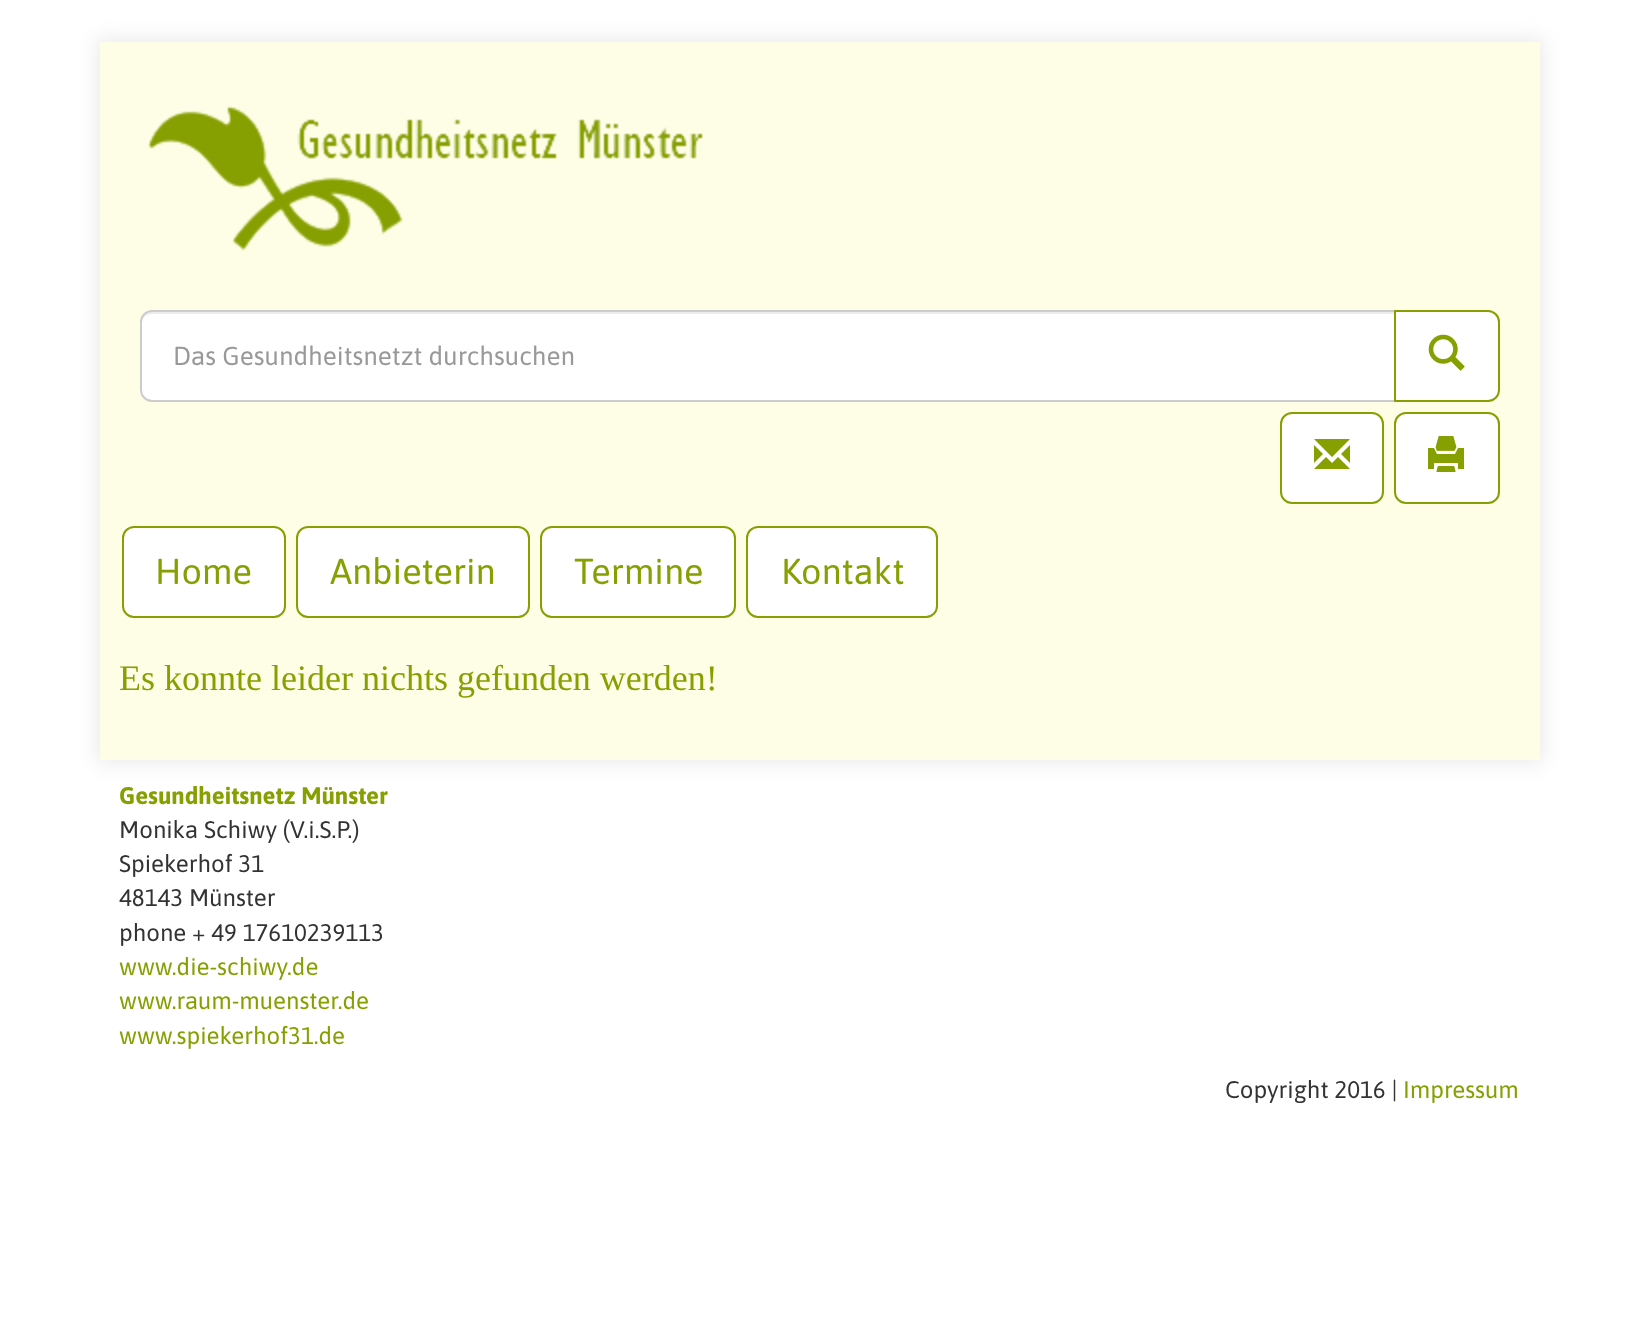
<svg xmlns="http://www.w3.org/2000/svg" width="1638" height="1336">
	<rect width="100%" height="100%" fill="#FFFFFF" />
	<rect x="96" y="38" width="1448" height="726" fill="#ECECEC" filter="blur(10px)" />
	<rect x="100" y="42" width="1440" height="718" fill="#FEFEE6" />
	<image x="147" y="105" width="556" height="146" href="assets/img1.png" />
	<path d="M152 310H1396V402H152C145.5 402 140 396.5 140 390V322C140 315.5 145.5 310 152 310Z" fill="#FFFFFF" />
	<path d="M152 314H1394V312H152C145 312 142 318 142 324C142 318 146 314 152 314Z" fill="#ECECEC" />
	<path d="M152 311H1395V401H152C146 401 141 396 141 390V322C141 316 146 311 152 311Z" fill="none" stroke="#CCCCCC" stroke-width="2" />
	<text x="173" y="365" font-family="Asap" font-size="26" fill="#999999">Das Gesundheitsnetzt durchsuchen</text>
	<path d="M1395 311H1488C1494 311 1499 316 1499 322V390C1499 396 1494 401 1488 401H1395Z" fill="#FFFFFF" stroke="#86A001" stroke-width="2" />
	<image x="1428" y="334" width="37" height="37" href="assets/img2.png" />
	<rect x="1281" y="413" width="102" height="90" rx="11" fill="#FFFFFF" stroke="#86A001" stroke-width="2" />
	<image x="1314" y="439" width="36" height="30" href="assets/img3.png" />
	<rect x="1395" y="413" width="104" height="90" rx="11" fill="#FFFFFF" stroke="#86A001" stroke-width="2" />
	<image x="1428" y="436" width="36" height="36" href="assets/img4.png" />
	<rect x="123" y="527" width="162" height="90" rx="11" fill="#FFFFFF" stroke="#86A001" stroke-width="2" />
	<text x="155" y="584" font-family="Asap" font-size="36" fill="#86A001">Home</text>
	<rect x="297" y="527" width="232" height="90" rx="11" fill="#FFFFFF" stroke="#86A001" stroke-width="2" />
	<text x="330" y="584" font-family="Asap" font-size="36" fill="#86A001">Anbieterin</text>
	<rect x="541" y="527" width="194" height="90" rx="11" fill="#FFFFFF" stroke="#86A001" stroke-width="2" />
	<text x="574" y="584" font-family="Asap" font-size="36" fill="#86A001">Termine</text>
	<rect x="747" y="527" width="190" height="90" rx="11" fill="#FFFFFF" stroke="#86A001" stroke-width="2" />
	<text x="781" y="584" font-family="Asap" font-size="36" fill="#86A001">Kontakt</text>
	<text x="119" y="690" font-family="Liberation Serif" font-size="36" fill="#86A001">Es konnte leider nichts gefunden werden!</text>
	<text x="119" y="804" font-family="Asap" font-size="24" font-weight="700" fill="#86A001">Gesundheitsnetz Münster</text>
	<g font-family="Asap" font-size="24" fill="#333333">
		<text x="119" y="838">Monika Schiwy (V.i.S.P.)</text>
		<text x="119" y="872">Spiekerhof 31</text>
		<text x="119" y="906">48143 Münster</text>
		<text x="119" y="941">phone + 49 17610239113</text>
	</g>
	<g font-family="Asap" font-size="24" fill="#86A001">
		<text x="119" y="975">www.die-schiwy.de</text>
		<text x="119" y="1009">www.raum-muenster.de</text>
		<text x="119" y="1044">www.spiekerhof31.de</text>
	</g>
	<text x="1225" y="1098" font-family="Asap" font-size="24" fill="#333333">Copyright 2016 |</text>
	<text x="1403" y="1098" font-family="Asap" font-size="24" fill="#86A001">Impressum</text>
</svg>
